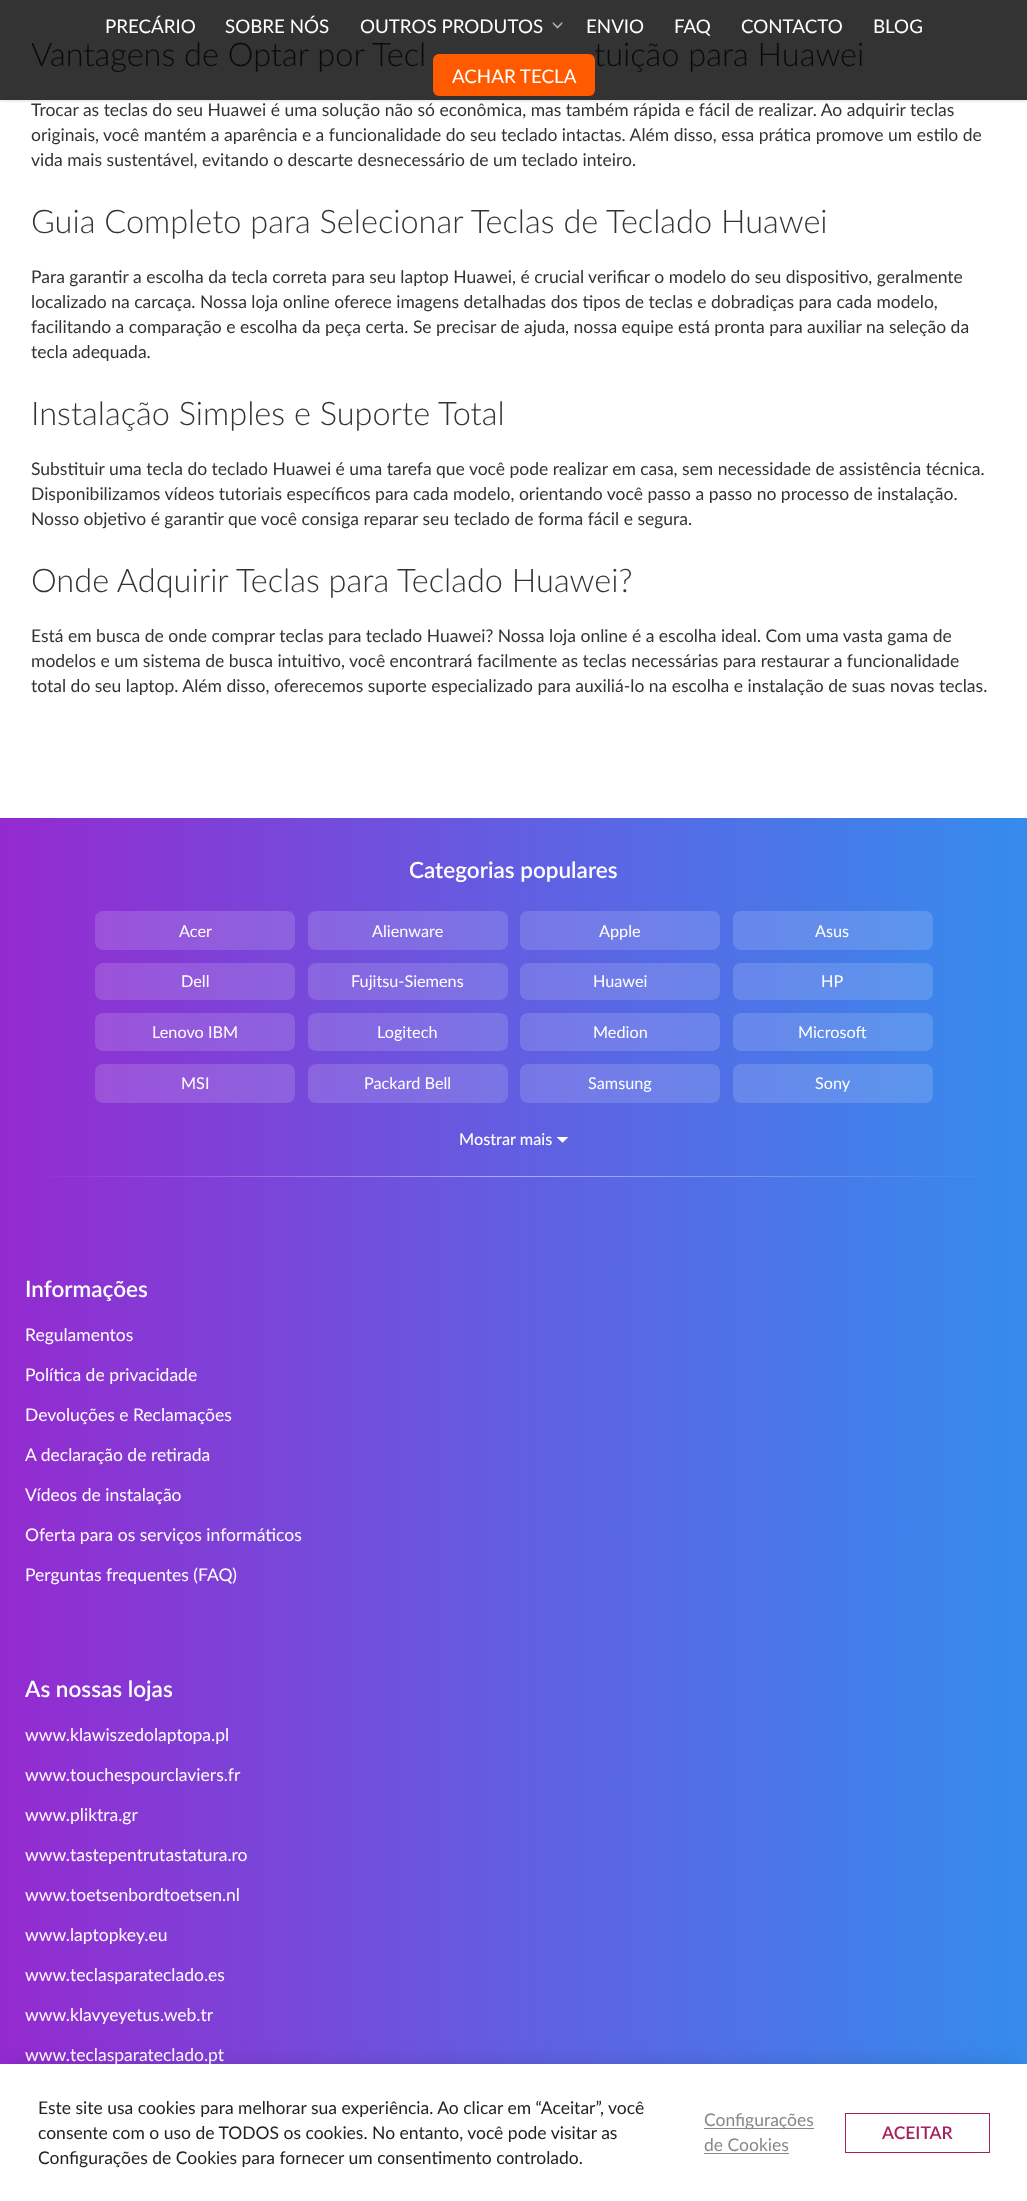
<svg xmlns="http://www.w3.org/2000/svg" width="1027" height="2201">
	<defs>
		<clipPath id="clip1"><rect x="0" y="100" width="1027" height="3" /></clipPath>
		<linearGradient id="g1" gradientUnits="userSpaceOnUse" x1="0" y1="998" x2="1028" y2="998"><stop offset="0" stop-color="#942AD0" /><stop offset="0.5" stop-color="#625EE2" /><stop offset="1" stop-color="#358CED" /></linearGradient>
		<linearGradient id="g2" gradientUnits="userSpaceOnUse" x1="25" y1="1177" x2="1003" y2="1177"><stop offset="0" stop-color="#FFFFFF" stop-opacity="0" /><stop offset="0.5" stop-color="#FFFFFF" stop-opacity="0.5" /><stop offset="1" stop-color="#FFFFFF" stop-opacity="0" /></linearGradient>
		<linearGradient id="g3" gradientUnits="userSpaceOnUse" x1="0" y1="1990" x2="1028" y2="1990"><stop offset="0" stop-color="#942AD0" /><stop offset="0.5" stop-color="#625EE2" /><stop offset="1" stop-color="#358CED" /></linearGradient>
	</defs>
	<rect width="100%" height="100%" fill="#FFFFFF" />
	<rect x="0" y="0" width="1027" height="100" fill="#333333" />
	<g clip-path="url(#clip1)">
		<rect x="0" y="0" width="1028" height="100" fill="#000000" fill-opacity="0.2" filter="blur(2px)" />
	</g>
	<g font-family="Lato" font-size="18.75" fill="#FFFFFF">
		<text x="105" y="33">PRECÁRIO</text>
		<text x="225" y="33">SOBRE NÓS</text>
		<text x="360" y="33">OUTROS PRODUTOS</text>
	</g>
	<image x="552" y="22" width="11" height="7" href="assets/img1.png" />
	<g font-family="Lato" font-size="18.75" fill="#FFFFFF">
		<text x="586" y="33">ENVIO</text>
		<text x="674" y="33">FAQ</text>
		<text x="741" y="33">CONTACTO</text>
		<text x="873" y="33">BLOG</text>
	</g>
	<text x="594" y="66" font-family="Lato" font-size="32.5" font-weight="300" fill="#0A0A0A">tuição para Huawei</text>
	<rect x="433" y="54" width="162" height="42" rx="6" fill="#FF5A00" />
	<text x="452" y="83" font-family="Lato" font-size="18.75" fill="#FFFFFF">ACHAR TECLA</text>
	<text x="31" y="66" font-family="Lato" font-size="32.5" font-weight="300" fill="#0A0A0A">Vantagens de Optar por Tecl</text>
	<g font-family="Lato" font-size="17.5" fill="#333333">
		<text x="31" y="116">Trocar as teclas do seu Huawei é uma solução não só econômica, mas também rápida e fácil de realizar. Ao adquirir teclas</text>
		<text x="31" y="141">originais, você mantém a aparência e a funcionalidade do seu teclado intactas. Além disso, essa prática promove um estilo de</text>
		<text x="31" y="166">vida mais sustentável, evitando o descarte desnecessário de um teclado inteiro.</text>
	</g>
	<text x="31" y="233" font-family="Lato" font-size="32.5" font-weight="300" fill="#333333">Guia Completo para Selecionar Teclas de Teclado Huawei</text>
	<g font-family="Lato" font-size="17.5" fill="#333333">
		<text x="31" y="283">Para garantir a escolha da tecla correta para seu laptop Huawei, é crucial verificar o modelo do seu dispositivo, geralmente</text>
		<text x="31" y="308">localizado na carcaça. Nossa loja online oferece imagens detalhadas dos tipos de teclas e dobradiças para cada modelo,</text>
		<text x="31" y="333">facilitando a comparação e escolha da peça certa. Se precisar de ajuda, nossa equipe está pronta para auxiliar na seleção da</text>
		<text x="31" y="358">tecla adequada.</text>
	</g>
	<text x="31" y="425" font-family="Lato" font-size="32.5" font-weight="300" fill="#333333">Instalação Simples e Suporte Total</text>
	<g font-family="Lato" font-size="17.5" fill="#333333">
		<text x="31" y="475">Substituir uma tecla do teclado Huawei é uma tarefa que você pode realizar em casa, sem necessidade de assistência técnica.</text>
		<text x="31" y="500">Disponibilizamos vídeos tutoriais específicos para cada modelo, orientando você passo a passo no processo de instalação.</text>
		<text x="31" y="525">Nosso objetivo é garantir que você consiga reparar seu teclado de forma fácil e segura.</text>
	</g>
	<text x="31" y="592" font-family="Lato" font-size="32.5" font-weight="300" fill="#333333">Onde Adquirir Teclas para Teclado Huawei?</text>
	<g font-family="Lato" font-size="17.5" fill="#333333">
		<text x="31" y="642">Está em busca de onde comprar teclas para teclado Huawei? Nossa loja online é a escolha ideal. Com uma vasta gama de</text>
		<text x="31" y="667">modelos e um sistema de busca intuitivo, você encontrará facilmente as teclas necessárias para restaurar a funcionalidade</text>
		<text x="31" y="692">total do seu laptop. Além disso, oferecemos suporte especializado para auxiliá-lo na escolha e instalação de suas novas teclas.</text>
	</g>
	<rect x="0" y="818" width="1027" height="360" fill="url(#g1)" />
	<text x="409" y="878" font-family="Lato" font-size="22.5" font-weight="600" fill="#FFFFFF">Categorias populares</text>
	<rect x="95" y="911" width="200" height="39" rx="8" fill="#FFFFFF" fill-opacity="0.15" />
	<text x="179" y="937" font-family="Lato" font-size="16.25" fill="#FFFFFF">Acer</text>
	<rect x="308" y="911" width="200" height="39" rx="8" fill="#FFFFFF" fill-opacity="0.15" />
	<text x="372" y="937" font-family="Lato" font-size="16.25" fill="#FFFFFF">Alienware</text>
	<rect x="520" y="911" width="200" height="39" rx="8" fill="#FFFFFF" fill-opacity="0.15" />
	<text x="599" y="937" font-family="Lato" font-size="16.25" fill="#FFFFFF">Apple</text>
	<rect x="733" y="911" width="200" height="39" rx="8" fill="#FFFFFF" fill-opacity="0.15" />
	<text x="815" y="937" font-family="Lato" font-size="16.25" fill="#FFFFFF">Asus</text>
	<rect x="95" y="963" width="200" height="37" rx="8" fill="#FFFFFF" fill-opacity="0.15" />
	<text x="181" y="987" font-family="Lato" font-size="16.25" fill="#FFFFFF">Dell</text>
	<rect x="308" y="963" width="200" height="37" rx="8" fill="#FFFFFF" fill-opacity="0.15" />
	<text x="351" y="987" font-family="Lato" font-size="16.25" fill="#FFFFFF">Fujitsu-Siemens</text>
	<rect x="520" y="963" width="200" height="37" rx="8" fill="#FFFFFF" fill-opacity="0.15" />
	<text x="593" y="987" font-family="Lato" font-size="16.25" fill="#FFFFFF">Huawei</text>
	<rect x="733" y="963" width="200" height="37" rx="8" fill="#FFFFFF" fill-opacity="0.15" />
	<text x="821" y="987" font-family="Lato" font-size="16.25" fill="#FFFFFF">HP</text>
	<rect x="95" y="1013" width="200" height="38" rx="8" fill="#FFFFFF" fill-opacity="0.15" />
	<text x="152" y="1038" font-family="Lato" font-size="16.25" fill="#FFFFFF">Lenovo IBM</text>
	<rect x="308" y="1013" width="200" height="38" rx="8" fill="#FFFFFF" fill-opacity="0.15" />
	<text x="377" y="1038" font-family="Lato" font-size="16.25" fill="#FFFFFF">Logitech</text>
	<rect x="520" y="1013" width="200" height="38" rx="8" fill="#FFFFFF" fill-opacity="0.15" />
	<text x="593" y="1038" font-family="Lato" font-size="16.25" fill="#FFFFFF">Medion</text>
	<rect x="733" y="1013" width="200" height="38" rx="8" fill="#FFFFFF" fill-opacity="0.15" />
	<text x="798" y="1038" font-family="Lato" font-size="16.25" fill="#FFFFFF">Microsoft</text>
	<rect x="95" y="1064" width="200" height="39" rx="8" fill="#FFFFFF" fill-opacity="0.15" />
	<text x="181" y="1089" font-family="Lato" font-size="16.25" fill="#FFFFFF">MSI</text>
	<rect x="308" y="1064" width="200" height="39" rx="8" fill="#FFFFFF" fill-opacity="0.15" />
	<text x="364" y="1089" font-family="Lato" font-size="16.25" fill="#FFFFFF">Packard Bell</text>
	<rect x="520" y="1064" width="200" height="39" rx="8" fill="#FFFFFF" fill-opacity="0.15" />
	<text x="588" y="1089" font-family="Lato" font-size="16.25" fill="#FFFFFF">Samsung</text>
	<rect x="733" y="1064" width="200" height="39" rx="8" fill="#FFFFFF" fill-opacity="0.15" />
	<text x="815" y="1089" font-family="Lato" font-size="16.25" fill="#FFFFFF">Sony</text>
	<text x="459" y="1145" font-family="Lato" font-size="16.25" font-weight="500" fill="#FFFFFF">Mostrar mais</text>
	<text x="556" y="1145" font-family="FreeSans" font-size="16.25" fill="#FFFFFF">⏷</text>
	<rect x="46" y="1176" width="936" height="1" fill="url(#g2)" />
	<rect x="0" y="1178" width="1027" height="886" fill="url(#g3)" />
	<text x="25" y="1297" font-family="Lato" font-size="22.5" font-weight="600" fill="#FFFFFF">Informações</text>
	<g font-family="Lato" font-size="17.5" fill="#FFFFFF">
		<text x="25" y="1341">Regulamentos</text>
		<text x="25" y="1381">Política de privacidade</text>
		<text x="25" y="1421">Devoluções e Reclamações</text>
		<text x="25" y="1461">A declaração de retirada</text>
		<text x="25" y="1501">Vídeos de instalação</text>
		<text x="25" y="1541">Oferta para os serviços informáticos</text>
		<text x="25" y="1581">Perguntas frequentes (FAQ)</text>
	</g>
	<text x="25" y="1697" font-family="Lato" font-size="22.5" font-weight="600" fill="#FFFFFF">As nossas lojas</text>
	<g font-family="Lato" font-size="17.5" fill="#FFFFFF">
		<text x="25" y="1741">www.klawiszedolaptopa.pl</text>
		<text x="25" y="1781">www.touchespourclaviers.fr</text>
		<text x="25" y="1821">www.pliktra.gr</text>
		<text x="25" y="1861">www.tastepentrutastatura.ro</text>
		<text x="25" y="1901">www.toetsenbordtoetsen.nl</text>
		<text x="25" y="1941">www.laptopkey.eu</text>
		<text x="25" y="1981">www.teclasparateclado.es</text>
		<text x="25" y="2021">www.klavyeyetus.web.tr</text>
		<text x="25" y="2061">www.teclasparateclado.pt</text>
	</g>
	<rect x="6" y="2070" width="1015" height="125" fill="#000000" fill-opacity="0.2" filter="blur(12.5px)" />
	<rect x="0" y="2064" width="1027" height="137" fill="#FFFFFF" />
	<g font-family="Lato" font-size="17.5" fill="#222222">
		<text x="38" y="2114">Este site usa cookies para melhorar sua experiência. Ao clicar em “Aceitar”, você</text>
		<text x="38" y="2139">consente com o uso de TODOS os cookies. No entanto, você pode visitar as</text>
		<text x="38" y="2164">Configurações de Cookies para fornecer um consentimento controlado.</text>
	</g>
	<rect x="704" y="2128" width="110" height="1" fill="#888888" />
	<g font-family="Lato" font-size="17.5" fill="#888888">
		<text x="704" y="2126">Configurações</text>
		<text x="704" y="2151">de Cookies</text>
	</g>
	<rect x="704" y="2153" width="85" height="1" fill="#888888" />
	<rect x="845.5" y="2113.5" width="144" height="39" fill="none" stroke="#A5205F" />
	<text x="882" y="2139" font-family="Lato" font-size="17.5" font-weight="600" fill="#A5205F">ACEITAR</text>
</svg>
